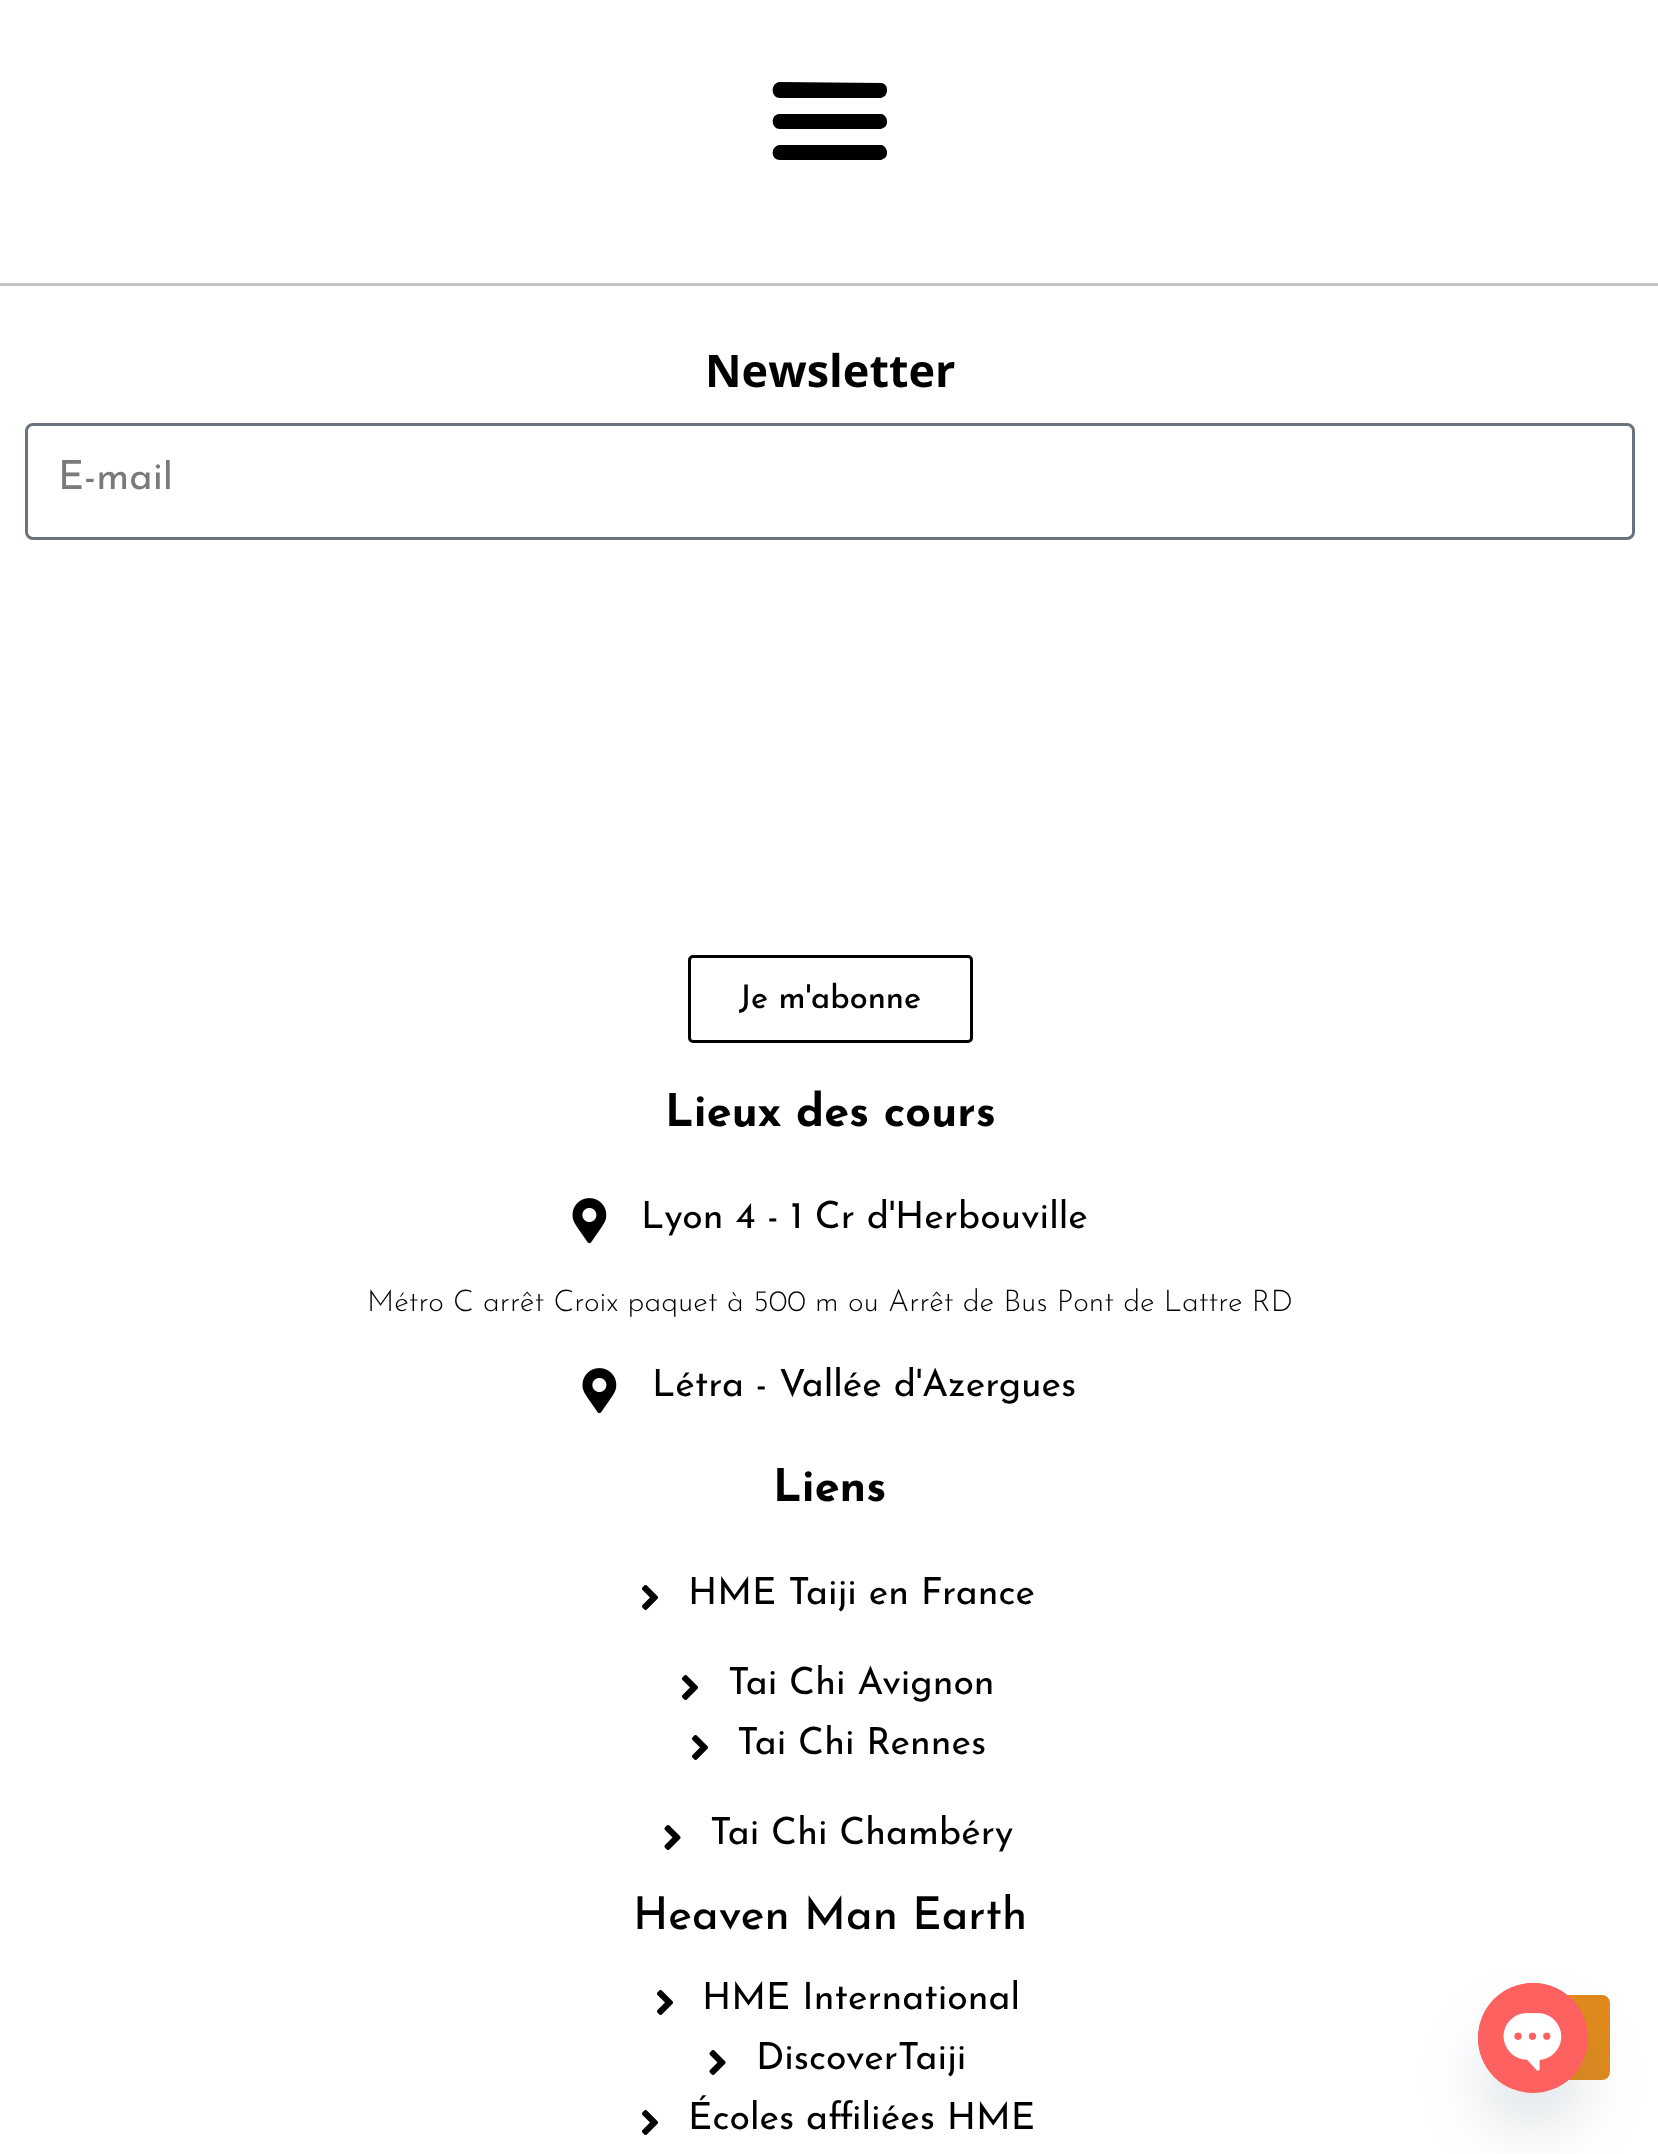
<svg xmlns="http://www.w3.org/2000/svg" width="1658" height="2154">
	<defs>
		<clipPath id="clip1"><rect x="58" y="460" width="1545" height="40" /></clipPath>
	</defs>
	<rect width="100%" height="100%" fill="#FFFFFF" />
	<rect x="0" y="283" width="1658" height="3" fill="#C3C3C3" />
	<path d="M780 98H881L885 96C889 91 887 84 882 83L779 82C770 84 771 98 780 98ZM780 129H881L885 127C889 123 887 116 882 114H779C770 115 771 129 780 129ZM780 160H881L885 158C889 154 887 147 882 145H779C770 147 771 160 780 160Z" fill="#000000" />
	<text x="705" y="387" font-family="Open Sans" font-size="45" font-weight="700" fill="#000000">Newsletter</text>
	<rect x="26.5" y="424.5" width="1607" height="114" rx="6.5" fill="none" stroke="#69727D" stroke-width="3" />
	<g clip-path="url(#clip1)">
		<text x="58" y="489" font-family="Josefin Sans" font-size="40" font-weight="100" fill="#797A7C">E-mail</text>
	</g>
	<rect x="689.5" y="956.5" width="282" height="85" rx="3.5" fill="none" stroke="#000000" stroke-width="3" />
	<text x="739" y="1008" font-family="Josefin Sans" font-size="32.5" font-weight="500" fill="#000000">Je m'abonne</text>
	<text x="665" y="1126" font-family="Josefin Sans" font-size="45" font-weight="700" fill="#000000">Lieux des cours</text>
	<image x="572" y="1198" width="35" height="46" href="assets/img1.png" />
	<text x="641" y="1228" font-family="Josefin Sans" font-size="37.5" font-weight="100" fill="#000000">Lyon 4 - 1 Cr d'Herbouville</text>
	<text x="367" y="1311" font-family="Josefin Sans" font-size="30" font-weight="300" fill="#000000">Métro C arrêt Croix paquet à 500 m ou Arrêt de Bus Pont de Lattre RD</text>
	<image x="582" y="1368" width="35" height="46" href="assets/img1.png" />
	<text x="652" y="1396" font-family="Josefin Sans" font-size="37.5" font-weight="100" fill="#000000">Létra - Vallée d'Azergues</text>
	<text x="773" y="1501" font-family="Josefin Sans" font-size="45" font-weight="700" fill="#000000">Liens</text>
	<image x="642" y="1585" width="16" height="25" href="assets/img2.png" />
	<text x="688" y="1604" font-family="Josefin Sans" font-size="37.5" font-weight="100" fill="#000000">HME Taiji en France</text>
	<image x="682" y="1675" width="16" height="25" href="assets/img2.png" />
	<text x="728" y="1694" font-family="Josefin Sans" font-size="37.5" font-weight="100" fill="#000000">Tai Chi Avignon</text>
	<image x="692" y="1735" width="16" height="25" href="assets/img2.png" />
	<text x="737" y="1754" font-family="Josefin Sans" font-size="37.5" font-weight="100" fill="#000000">Tai Chi Rennes</text>
	<image x="664" y="1825" width="17" height="25" href="assets/img3.png" />
	<text x="710" y="1844" font-family="Josefin Sans" font-size="37.5" font-weight="100" fill="#000000">Tai Chi Chambéry</text>
	<text x="633" y="1929" font-family="Josefin Sans" font-size="45" font-weight="500" fill="#000000">Heaven Man Earth</text>
	<image x="657" y="1990" width="16" height="25" href="assets/img2.png" />
	<text x="702" y="2009" font-family="Josefin Sans" font-size="37.5" font-weight="100" fill="#000000">HME International</text>
	<image x="709" y="2050" width="17" height="25" href="assets/img3.png" />
	<text x="756" y="2069" font-family="Josefin Sans" font-size="37.5" font-weight="100" fill="#000000">DiscoverTaiji</text>
	<image x="642" y="2110" width="16" height="25" href="assets/img2.png" />
	<text x="688" y="2129" font-family="Josefin Sans" font-size="37.5" font-weight="100" fill="#000000">Écoles affiliées HME</text>
	<rect x="1516.5" y="1996.5" width="92" height="82" rx="6.5" fill="#E08A1C" stroke="#E08A1C" stroke-width="3" />
	<rect x="1478" y="2023" width="110" height="110" rx="55" fill="#49687E" fill-opacity="0.16" filter="blur(30px)" />
	<circle cx="1533" cy="2038" r="55" fill="#FF6060" />
	<image x="1478" y="1983" width="89" height="106" href="assets/img4.png" />
</svg>
